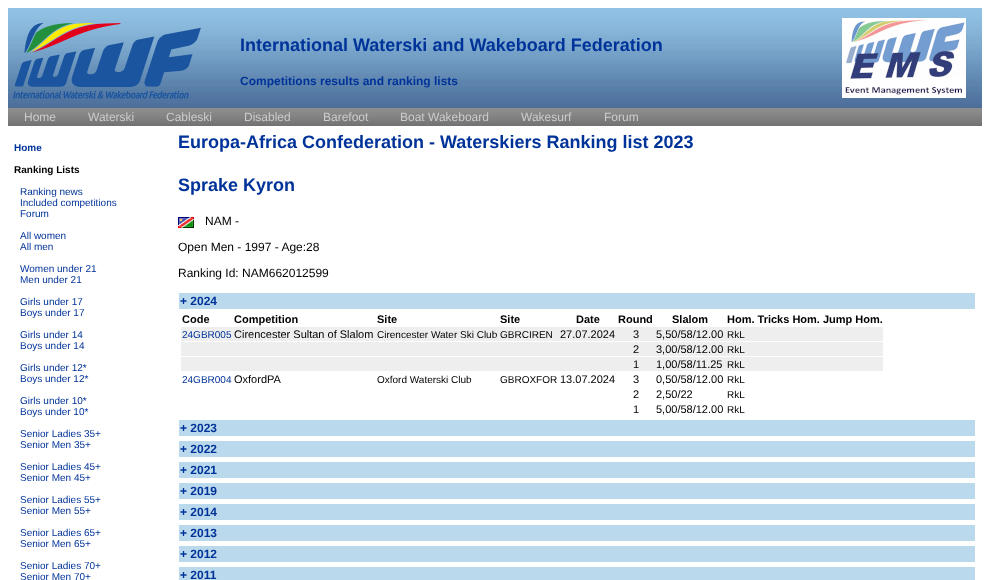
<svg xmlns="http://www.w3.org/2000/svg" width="990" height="580">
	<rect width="100%" height="100%" fill="#FFFFFF" />
	<image x="8" y="8" width="974" height="100" href="assets/img1.png" />
	<image x="13" y="23" width="188" height="76" href="assets/img2.png" />
	<text x="240" y="51" font-family="Liberation Sans" font-size="18" font-weight="700" fill="#003399">International Waterski and Wakeboard Federation</text>
	<text x="240" y="85" font-family="Liberation Sans" font-size="12" font-weight="700" fill="#003399">Competitions results and ranking lists</text>
	<image x="842" y="18" width="124" height="80" href="assets/img3.png" />
	<image x="8" y="108" width="974" height="18" href="assets/img4.png" />
	<g font-family="Liberation Sans" font-size="12" fill="#CCCCCC">
		<text x="24" y="121">Home</text>
		<text x="88" y="121">Waterski</text>
		<text x="166" y="121">Cableski</text>
		<text x="244" y="121">Disabled</text>
		<text x="323" y="121">Barefoot</text>
		<text x="400" y="121">Boat Wakeboard</text>
		<text x="521" y="121">Wakesurf</text>
		<text x="604" y="121">Forum</text>
	</g>
	<text x="14" y="151" font-family="Liberation Sans" font-size="10" font-weight="700" fill="#003399">Home</text>
	<text x="14" y="173" font-family="Liberation Sans" font-size="10" font-weight="700" fill="#000000">Ranking Lists</text>
	<g font-family="Liberation Sans" font-size="10" fill="#003399">
		<text x="20" y="195">Ranking news</text>
		<text x="20" y="206">Included competitions</text>
		<text x="20" y="217">Forum</text>
		<text x="20" y="239">All women</text>
		<text x="20" y="250">All men</text>
		<text x="20" y="272">Women under 21</text>
		<text x="20" y="283">Men under 21</text>
		<text x="20" y="305">Girls under 17</text>
		<text x="20" y="316">Boys under 17</text>
		<text x="20" y="338">Girls under 14</text>
		<text x="20" y="349">Boys under 14</text>
		<text x="20" y="371">Girls under 12*</text>
		<text x="20" y="382">Boys under 12*</text>
		<text x="20" y="404">Girls under 10*</text>
		<text x="20" y="415">Boys under 10*</text>
		<text x="20" y="437">Senior Ladies 35+</text>
		<text x="20" y="448">Senior Men 35+</text>
		<text x="20" y="470">Senior Ladies 45+</text>
		<text x="20" y="481">Senior Men 45+</text>
		<text x="20" y="503">Senior Ladies 55+</text>
		<text x="20" y="514">Senior Men 55+</text>
		<text x="20" y="536">Senior Ladies 65+</text>
		<text x="20" y="547">Senior Men 65+</text>
		<text x="20" y="569">Senior Ladies 70+</text>
		<text x="20" y="580">Senior Men 70+</text>
	</g>
	<g font-family="Liberation Sans" font-size="18" font-weight="700" fill="#003399">
		<text x="178" y="148">Europa-Africa Confederation - Waterskiers Ranking list 2023</text>
		<text x="178" y="191">Sprake Kyron</text>
	</g>
	<image x="178" y="217" width="16" height="11" href="assets/img5.png" />
	<g font-family="Liberation Sans" font-size="12" fill="#000000">
		<text x="205" y="225">NAM -</text>
		<text x="178" y="251">Open Men - 1997 - Age:28</text>
		<text x="178" y="277">Ranking Id: NAM662012599</text>
	</g>
	<rect x="179" y="293" width="796" height="16" fill="#BBD9EC" />
	<text x="180" y="305" font-family="Liberation Sans" font-size="12" font-weight="700" fill="#003399">+ 2024</text>
	<g font-family="Liberation Sans" font-size="11" font-weight="700" fill="#000000">
		<text x="182" y="323">Code</text>
		<text x="234" y="323">Competition</text>
		<text x="377" y="323">Site</text>
		<text x="500" y="323">Site</text>
		<text x="576" y="323">Date</text>
		<text x="618" y="323">Round</text>
		<text x="672" y="323">Slalom</text>
		<text x="727" y="323">Hom. Tricks Hom. Jump Hom.</text>
	</g>
	<rect x="181" y="327" width="702" height="14" fill="#EEEEEE" />
	<text x="182" y="338" font-family="Liberation Sans" font-size="10" fill="#003399">24GBR005</text>
	<text x="234" y="338" font-family="Liberation Sans" font-size="11" fill="#000000">Cirencester Sultan of Slalom</text>
	<text x="377" y="338" font-family="Liberation Sans" font-size="10" fill="#000000">Cirencester Water Ski Club GBRCIREN</text>
	<g font-family="Liberation Sans" font-size="11" fill="#000000">
		<text x="560" y="338">27.07.2024</text>
		<text x="633" y="338">3</text>
		<text x="656" y="338">5,50/58/12.00</text>
	</g>
	<text x="727" y="338" font-family="Liberation Sans" font-size="10" fill="#000000">RkL</text>
	<rect x="181" y="342" width="702" height="14" fill="#EEEEEE" />
	<g font-family="Liberation Sans" font-size="11" fill="#000000">
		<text x="633" y="353">2</text>
		<text x="656" y="353">3,00/58/12.00</text>
	</g>
	<text x="727" y="353" font-family="Liberation Sans" font-size="10" fill="#000000">RkL</text>
	<rect x="181" y="357" width="702" height="14" fill="#EEEEEE" />
	<g font-family="Liberation Sans" font-size="11" fill="#000000">
		<text x="633" y="368">1</text>
		<text x="656" y="368">1,00/58/11.25</text>
	</g>
	<text x="727" y="368" font-family="Liberation Sans" font-size="10" fill="#000000">RkL</text>
	<text x="182" y="383" font-family="Liberation Sans" font-size="10" fill="#003399">24GBR004</text>
	<text x="234" y="383" font-family="Liberation Sans" font-size="11" fill="#000000">OxfordPA</text>
	<g font-family="Liberation Sans" font-size="10" fill="#000000">
		<text x="377" y="383">Oxford Waterski Club</text>
		<text x="500" y="383">GBROXFOR</text>
	</g>
	<g font-family="Liberation Sans" font-size="11" fill="#000000">
		<text x="560" y="383">13.07.2024</text>
		<text x="633" y="383">3</text>
		<text x="656" y="383">0,50/58/12.00</text>
	</g>
	<text x="727" y="383" font-family="Liberation Sans" font-size="10" fill="#000000">RkL</text>
	<g font-family="Liberation Sans" font-size="11" fill="#000000">
		<text x="633" y="398">2</text>
		<text x="656" y="398">2,50/22</text>
	</g>
	<text x="727" y="398" font-family="Liberation Sans" font-size="10" fill="#000000">RkL</text>
	<g font-family="Liberation Sans" font-size="11" fill="#000000">
		<text x="633" y="413">1</text>
		<text x="656" y="413">5,00/58/12.00</text>
	</g>
	<text x="727" y="413" font-family="Liberation Sans" font-size="10" fill="#000000">RkL</text>
	<rect x="179" y="420" width="796" height="16" fill="#BBD9EC" />
	<text x="180" y="432" font-family="Liberation Sans" font-size="12" font-weight="700" fill="#003399">+ 2023</text>
	<rect x="179" y="441" width="796" height="16" fill="#BBD9EC" />
	<text x="180" y="453" font-family="Liberation Sans" font-size="12" font-weight="700" fill="#003399">+ 2022</text>
	<rect x="179" y="462" width="796" height="16" fill="#BBD9EC" />
	<text x="180" y="474" font-family="Liberation Sans" font-size="12" font-weight="700" fill="#003399">+ 2021</text>
	<rect x="179" y="483" width="796" height="16" fill="#BBD9EC" />
	<text x="180" y="495" font-family="Liberation Sans" font-size="12" font-weight="700" fill="#003399">+ 2019</text>
	<rect x="179" y="504" width="796" height="16" fill="#BBD9EC" />
	<text x="180" y="516" font-family="Liberation Sans" font-size="12" font-weight="700" fill="#003399">+ 2014</text>
	<rect x="179" y="525" width="796" height="16" fill="#BBD9EC" />
	<text x="180" y="537" font-family="Liberation Sans" font-size="12" font-weight="700" fill="#003399">+ 2013</text>
	<rect x="179" y="546" width="796" height="16" fill="#BBD9EC" />
	<text x="180" y="558" font-family="Liberation Sans" font-size="12" font-weight="700" fill="#003399">+ 2012</text>
	<rect x="179" y="567" width="796" height="13" fill="#BBD9EC" />
	<text x="180" y="579" font-family="Liberation Sans" font-size="12" font-weight="700" fill="#003399">+ 2011</text>
</svg>
